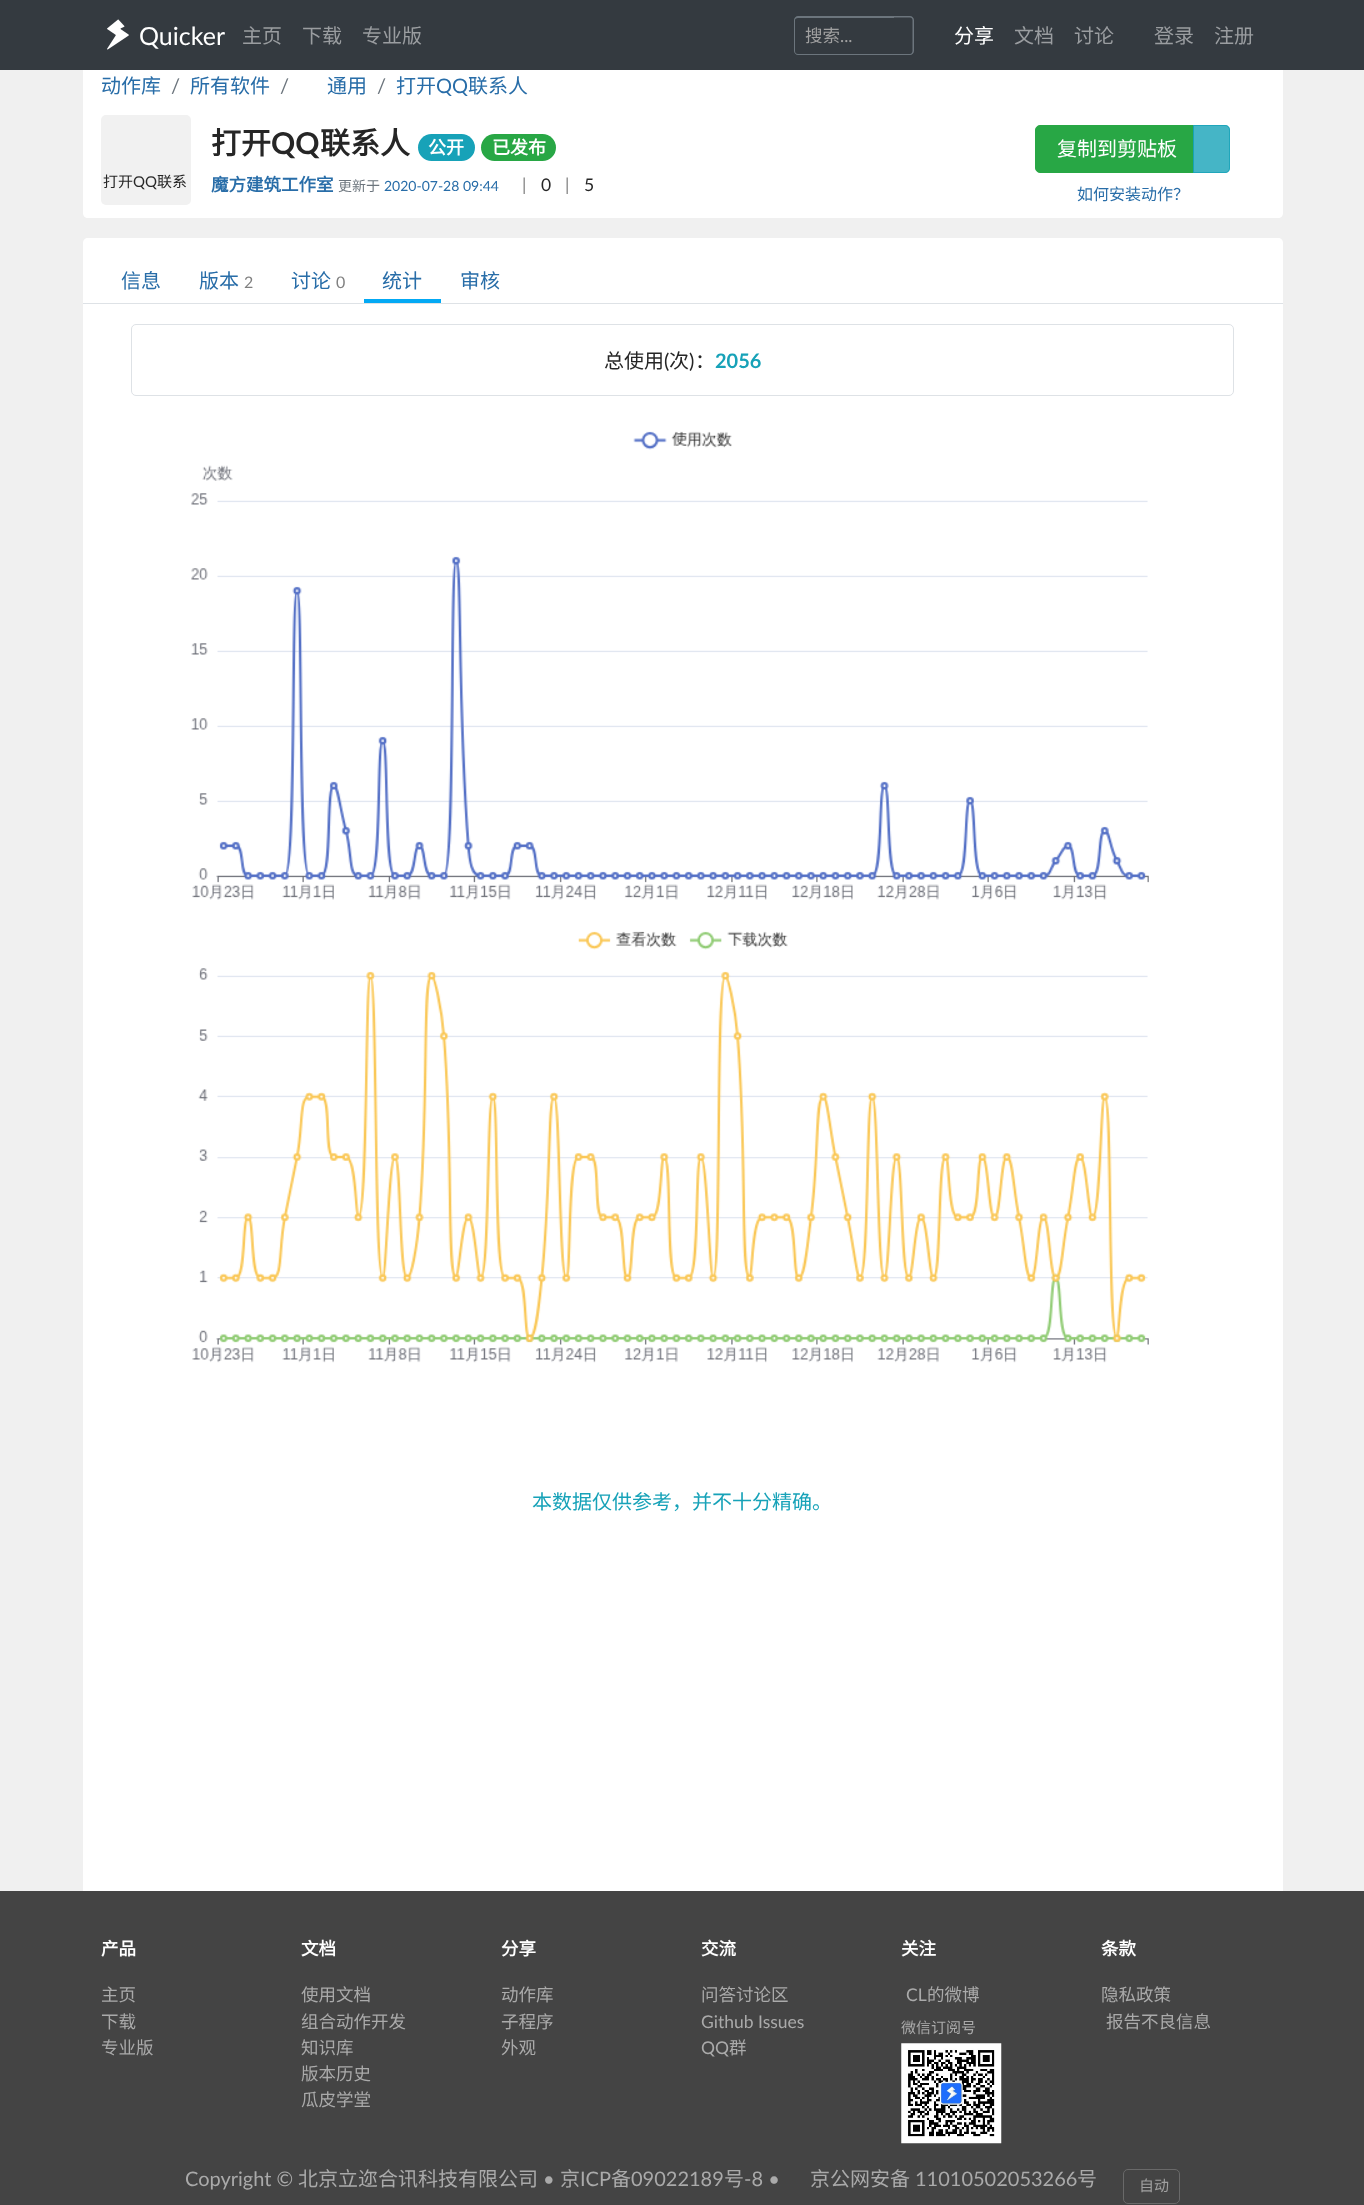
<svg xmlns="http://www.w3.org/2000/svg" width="1364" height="2205">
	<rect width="100%" height="100%" fill="#F0F0F0" />
	<path d="M83 55H1283V213C1283 216 1281 218 1278 218H88C85 218 83 216 83 213Z" fill="#FFFFFF" />
	<rect x="0" y="0" width="1364" height="70" fill="#343A40" />
	<image x="107" y="19" width="22" height="31" href="assets/img1.png" />
	<text x="139" y="45" font-family="Lato" font-size="25" fill="#FFFFFF">Quicker</text>
	<g font-family="Noto Sans CJK SC" font-size="20" fill="#9A9DA0">
		<text x="242" y="43">主页</text>
		<text x="302" y="43">下载</text>
		<text x="362" y="43">专业版</text>
	</g>
	<path d="M798 16H894V55H798C796 55 794 53 794 51V20C794 18 796 16 798 16ZM798 18H894V54H798C796 54 795 53 795 51V20C795 19 796 18 798 18Z" fill="#6C757D" fill-rule="evenodd" />
	<text x="805" y="42" font-family="Noto Sans CJK SC" font-size="17.5" fill="#A0A0A0">搜索</text>
	<text x="840" y="42" font-family="Lato" font-size="17.5" fill="#A0A0A0">...</text>
	<path d="M892.5 16H910C912 16 914 18 914 20V51C914 53 912 55 910 55H892.5ZM892.5 17.5H910C911.5 17.5 912.5 18.5 912.5 20V51C912.5 52.5 911.5 54 910 54H892.5Z" fill="#6C757D" fill-rule="evenodd" />
	<text x="954" y="43" font-family="Noto Sans CJK SC" font-size="20" fill="#FFFFFF">分享</text>
	<g font-family="Noto Sans CJK SC" font-size="20" fill="#9A9DA0">
		<text x="1014" y="43">文档</text>
		<text x="1074" y="43">讨论</text>
		<text x="1154" y="43">登录</text>
		<text x="1214" y="43">注册</text>
	</g>
	<text x="101" y="93" font-family="Noto Sans CJK SC" font-size="20" fill="#286DA8">动作库</text>
	<text x="171" y="93" font-family="Lato" font-size="20" fill="#6C757D">/</text>
	<text x="190" y="93" font-family="Noto Sans CJK SC" font-size="20" fill="#286DA8">所有软件</text>
	<text x="280" y="93" font-family="Lato" font-size="20" fill="#6C757D">/</text>
	<text x="327" y="93" font-family="Noto Sans CJK SC" font-size="20" fill="#286DA8">通用</text>
	<text x="377" y="93" font-family="Lato" font-size="20" fill="#6C757D">/</text>
	<text x="396" y="93" font-family="Noto Sans CJK SC" font-size="20" fill="#286DA8">打开</text>
	<text x="436" y="93" font-family="Lato" font-size="20" fill="#286DA8">QQ</text>
	<text x="468" y="93" font-family="Noto Sans CJK SC" font-size="20" fill="#286DA8">联系人</text>
	<rect x="101" y="115" width="90" height="90" rx="5" fill="#F1F1F1" />
	<text x="103" y="187" font-family="Noto Sans CJK SC" font-size="15" fill="#262626">打开</text>
	<text x="133" y="187" font-family="Lato" font-size="15" fill="#262626">QQ</text>
	<text x="157" y="187" font-family="Noto Sans CJK SC" font-size="15" fill="#262626">联系</text>
	<text x="211" y="154" font-family="Noto Sans CJK SC" font-size="30" font-weight="700" fill="#262626">打开</text>
	<text x="271" y="154" font-family="Lato" font-size="30" font-weight="700" fill="#262626">QQ</text>
	<text x="320" y="154" font-family="Noto Sans CJK SC" font-size="30" font-weight="700" fill="#262626">联系人</text>
	<rect x="418" y="134" width="57" height="27" rx="13.5" fill="#17A2B8" />
	<text x="428" y="154" font-family="Noto Sans CJK SC" font-size="18" font-weight="700" fill="#FFFFFF">公开</text>
	<rect x="481" y="134" width="75" height="27" rx="13.5" fill="#28A745" />
	<text x="492" y="154" font-family="Noto Sans CJK SC" font-size="18" font-weight="700" fill="#FFFFFF">已发布</text>
	<text x="211" y="191" font-family="Noto Sans CJK SC" font-size="17.5" font-weight="700" fill="#286DA8">魔方建筑工作室</text>
	<text x="338" y="191" font-family="Noto Sans CJK SC" font-size="14" fill="#6C757D">更新于</text>
	<text x="384" y="191" font-family="Lato" font-size="14" fill="#286DA8">2020-07-28 09:44</text>
	<text x="522" y="191" font-family="Lato" font-size="17.5" fill="#808080">|</text>
	<text x="541" y="191" font-family="Lato" font-size="17.5" fill="#262626">0</text>
	<text x="565" y="191" font-family="Lato" font-size="17.5" fill="#808080">|</text>
	<text x="584" y="191" font-family="Lato" font-size="17.5" fill="#262626">5</text>
	<path d="M1040 125.5H1193.5V172.5H1040C1037.5 172.5 1035.5 170.5 1035.5 168V130C1035.5 127.5 1037.5 125.5 1040 125.5Z" fill="#28A745" stroke="#28A745" />
	<text x="1057" y="156" font-family="Noto Sans CJK SC" font-size="20" fill="#FFFFFF">复制到剪贴板</text>
	<path d="M1193 125H1225C1228 125 1230 127 1230 130V168C1230 171 1228 173 1225 173H1193Z" fill="#17A2B8" fill-opacity="0.8" />
	<path d="M1193.5 125.5H1225C1227.5 125.5 1229.5 127.5 1229.5 130V168C1229.5 170.5 1227.5 172.5 1225 172.5H1193.5Z" fill="none" stroke="#17A2B8" stroke-opacity="0.8" />
	<text x="1077" y="200" font-family="Noto Sans CJK SC" font-size="16" fill="#286DA8">如何安装动作？</text>
	<path d="M88 238H1278C1281 238 1283 240 1283 243V1891H83V243C83 240 85 238 88 238Z" fill="#FFFFFF" />
	<rect x="83" y="303" width="1200" height="1" fill="#DEE2E6" />
	<g font-family="Noto Sans CJK SC" font-size="20" fill="#286DA8">
		<text x="121" y="288">信息</text>
		<text x="199" y="288">版本</text>
	</g>
	<text x="244" y="288" font-family="Lato" font-size="16" fill="#808080">2</text>
	<text x="291" y="288" font-family="Noto Sans CJK SC" font-size="20" fill="#286DA8">讨论</text>
	<text x="336" y="288" font-family="Lato" font-size="16" fill="#808080">0</text>
	<rect x="364" y="299" width="77" height="4" fill="#03A9F4" />
	<g font-family="Noto Sans CJK SC" font-size="20" fill="#286DA8">
		<text x="382" y="288">统计</text>
		<text x="460" y="288">审核</text>
	</g>
	<rect x="131.5" y="324.5" width="1102" height="71" rx="4.5" fill="none" stroke="#DEE2E6" />
	<text x="604" y="368" font-family="Noto Sans CJK SC" font-size="20" fill="#262626">总使用</text>
	<text x="664" y="368" font-family="Lato" font-size="20" fill="#262626">(</text>
	<text x="669" y="368" font-family="Noto Sans CJK SC" font-size="20" fill="#262626">次</text>
	<text x="689" y="368" font-family="Lato" font-size="20" fill="#262626">)</text>
	<text x="695" y="368" font-family="Noto Sans CJK SC" font-size="20" fill="#262626">：</text>
	<text x="715" y="368" font-family="Lato" font-size="20" font-weight="700" fill="#17A2B8">2056</text>
	<image x="191" y="431" width="958" height="932" href="assets/img2.png" />
	<text x="532" y="1509" font-family="Noto Sans CJK SC" font-size="20" fill="#17A2B8">本数据仅供参考，并不十分精确。</text>
	<rect x="0" y="1891" width="1364" height="314" fill="#444444" />
	<text x="101" y="1955" font-family="Noto Sans CJK SC" font-size="17.5" font-weight="700" fill="#FFFFFF">产品</text>
	<g font-family="Noto Sans CJK SC" font-size="17.5" fill="#AAAAAA">
		<text x="101" y="2001">主页</text>
		<text x="101" y="2028">下载</text>
		<text x="101" y="2054">专业版</text>
	</g>
	<text x="301" y="1955" font-family="Noto Sans CJK SC" font-size="17.5" font-weight="700" fill="#FFFFFF">文档</text>
	<g font-family="Noto Sans CJK SC" font-size="17.5" fill="#AAAAAA">
		<text x="301" y="2001">使用文档</text>
		<text x="301" y="2028">组合动作开发</text>
		<text x="301" y="2054">知识库</text>
		<text x="301" y="2080">版本历史</text>
		<text x="301" y="2106">瓜皮学堂</text>
	</g>
	<text x="501" y="1955" font-family="Noto Sans CJK SC" font-size="17.5" font-weight="700" fill="#FFFFFF">分享</text>
	<g font-family="Noto Sans CJK SC" font-size="17.5" fill="#AAAAAA">
		<text x="501" y="2001">动作库</text>
		<text x="501" y="2028">子程序</text>
		<text x="501" y="2054">外观</text>
	</g>
	<text x="701" y="1955" font-family="Noto Sans CJK SC" font-size="17.5" font-weight="700" fill="#FFFFFF">交流</text>
	<text x="701" y="2001" font-family="Noto Sans CJK SC" font-size="17.5" fill="#AAAAAA">问答讨论区</text>
	<g font-family="Lato" font-size="17.5" fill="#AAAAAA">
		<text x="701" y="2028">Github Issues</text>
		<text x="701" y="2054">QQ</text>
	</g>
	<text x="729" y="2054" font-family="Noto Sans CJK SC" font-size="17.5" fill="#AAAAAA">群</text>
	<text x="901" y="1955" font-family="Noto Sans CJK SC" font-size="17.5" font-weight="700" fill="#FFFFFF">关注</text>
	<text x="906" y="2001" font-family="Lato" font-size="17.5" fill="#AAAAAA">CL</text>
	<text x="927" y="2001" font-family="Noto Sans CJK SC" font-size="17.5" fill="#AAAAAA">的微博</text>
	<text x="901" y="2033" font-family="Noto Sans CJK SC" font-size="15" fill="#AAAAAA">微信订阅号</text>
	<image x="901" y="2043" width="101" height="101" href="assets/img3.png" />
	<text x="1101" y="1955" font-family="Noto Sans CJK SC" font-size="17.5" font-weight="700" fill="#FFFFFF">条款</text>
	<g font-family="Noto Sans CJK SC" font-size="17.5" fill="#AAAAAA">
		<text x="1101" y="2001">隐私政策</text>
		<text x="1106" y="2028">报告不良信息</text>
	</g>
	<text x="185" y="2186" font-family="Lato" font-size="20" fill="#AAAAAA">Copyright ©</text>
	<text x="298" y="2186" font-family="Noto Sans CJK SC" font-size="20" fill="#AAAAAA">北京立迩合讯科技有限公司</text>
	<text x="543" y="2186" font-family="Lato" font-size="20" fill="#AAAAAA">•</text>
	<text x="560" y="2186" font-family="Noto Sans CJK SC" font-size="20" fill="#AAAAAA">京</text>
	<text x="580" y="2186" font-family="Lato" font-size="20" fill="#AAAAAA">ICP</text>
	<text x="611" y="2186" font-family="Noto Sans CJK SC" font-size="20" fill="#AAAAAA">备</text>
	<text x="631" y="2186" font-family="Lato" font-size="20" fill="#AAAAAA">09022189</text>
	<text x="724" y="2186" font-family="Noto Sans CJK SC" font-size="20" fill="#AAAAAA">号</text>
	<text x="744" y="2186" font-family="Lato" font-size="20" fill="#AAAAAA">-8 •</text>
	<text x="810" y="2186" font-family="Noto Sans CJK SC" font-size="20" fill="#AAAAAA">京公网安备</text>
	<text x="915" y="2186" font-family="Lato" font-size="20" fill="#AAAAAA">11010502053266</text>
	<text x="1077" y="2186" font-family="Noto Sans CJK SC" font-size="20" fill="#AAAAAA">号</text>
	<rect x="1123.5" y="2169.5" width="56" height="34" rx="4.5" fill="none" stroke="#696969" />
	<text x="1139" y="2191" font-family="Noto Sans CJK SC" font-size="15" fill="#A0A0A0">自动</text>
</svg>
